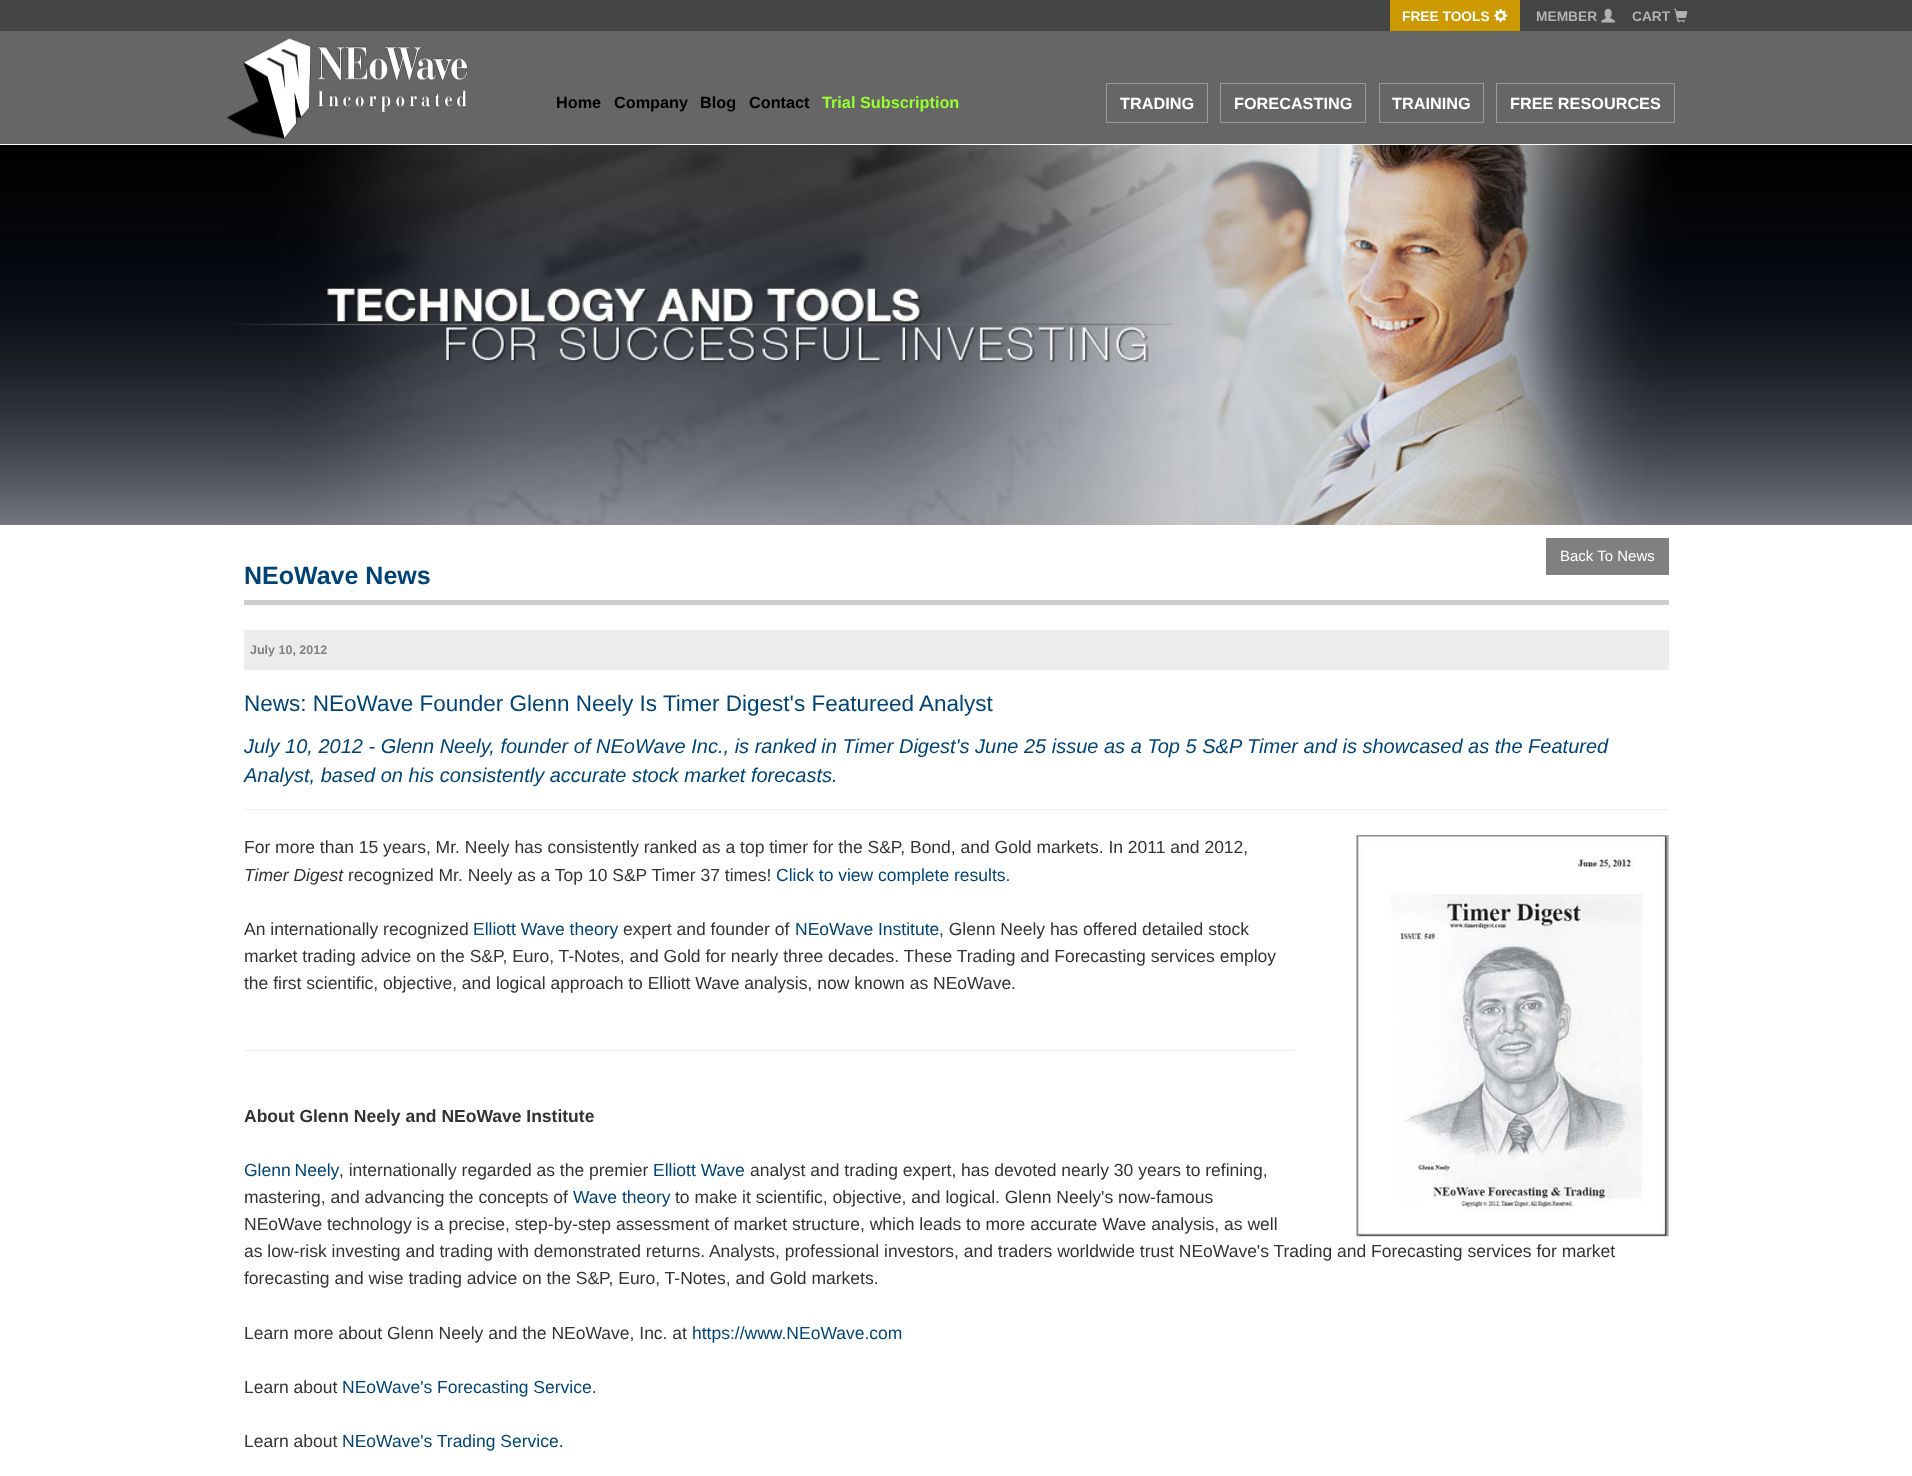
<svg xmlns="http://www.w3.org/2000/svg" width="1912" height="1476">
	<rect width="100%" height="100%" fill="#FFFFFF" />
	<rect x="0" y="31" width="1912" height="113" fill="#666666" />
	<rect x="0" y="0" width="1912" height="31" fill="#444444" />
	<rect x="1390" y="0" width="130" height="31" fill="#CC9900" />
	<text x="1402" y="21" font-family="Liberation Sans" font-size="13.75" font-weight="700" fill="#FFFFFF">FREE TOOLS</text>
	<image x="1494" y="9" width="14" height="14" href="assets/img1.png" />
	<text x="1536" y="21" font-family="Liberation Sans" font-size="13.75" font-weight="700" fill="#B1B2B2">MEMBER</text>
	<image x="1601" y="8" width="14" height="15" href="assets/img2.png" />
	<text x="1632" y="21" font-family="Liberation Sans" font-size="13.75" font-weight="700" fill="#B1B2B2">CART</text>
	<image x="1673" y="8" width="15" height="15" href="assets/img3.png" />
	<image x="227" y="38" width="241" height="101" href="assets/img4.png" />
	<g font-family="Liberation Sans" font-size="16.25" font-weight="700" fill="#000000">
		<text x="556" y="108">Home</text>
		<text x="614" y="108">Company</text>
		<text x="700" y="108">Blog</text>
		<text x="749" y="108">Contact</text>
	</g>
	<text x="822" y="108" font-family="Liberation Sans" font-size="16.25" font-weight="700" fill="#99FF33">Trial Subscription</text>
	<rect x="1106.5" y="83.5" width="101" height="39" fill="none" stroke="#999999" />
	<text x="1120" y="109" font-family="Liberation Sans" font-size="16.25" font-weight="700" fill="#FFFFFF">TRADING</text>
	<rect x="1220.5" y="83.5" width="145" height="39" fill="none" stroke="#999999" />
	<text x="1234" y="109" font-family="Liberation Sans" font-size="16.25" font-weight="700" fill="#FFFFFF">FORECASTING</text>
	<rect x="1379.5" y="83.5" width="104" height="39" fill="none" stroke="#999999" />
	<text x="1392" y="109" font-family="Liberation Sans" font-size="16.25" font-weight="700" fill="#FFFFFF">TRAINING</text>
	<rect x="1496.5" y="83.5" width="178" height="39" fill="none" stroke="#999999" />
	<text x="1510" y="109" font-family="Liberation Sans" font-size="16.25" font-weight="700" fill="#FFFFFF">FREE RESOURCES</text>
	<image x="0" y="145" width="1912" height="380" href="assets/img5.png" />
	<image x="225" y="145" width="1463" height="380" href="assets/img6.png" />
	<rect x="1546" y="538" width="123" height="37" fill="#808080" />
	<text x="1560" y="561" font-family="Liberation Sans" font-size="15" fill="#FFFFFF">Back To News</text>
	<rect x="244" y="600" width="1425" height="5" fill="#CCCCCC" />
	<text x="244" y="584" font-family="Liberation Sans" font-size="25" font-weight="700" fill="#004477">NEoWave News</text>
	<rect x="244" y="630" width="1425" height="40" fill="#ECECEC" />
	<text x="250" y="654" font-family="Liberation Sans" font-size="12.5" font-weight="700" fill="#808080">July 10, 2012</text>
	<text x="244" y="711" font-family="Liberation Sans" font-size="22.5" fill="#004477">News: NEoWave Founder Glenn Neely Is Timer Digest's Featureed Analyst</text>
	<rect x="244" y="809" width="1425" height="1" fill="#EEEEEE" />
	<g font-family="Liberation Sans" font-size="20" font-style="italic" fill="#004477">
		<text x="244" y="753">July 10, 2012 - Glenn Neely, founder of NEoWave Inc., is ranked in Timer Digest's June 25 issue as a Top 5 S&amp;P Timer and is showcased as the Featured</text>
		<text x="244" y="782">Analyst, based on his consistently accurate stock market forecasts.</text>
	</g>
	<text x="244" y="853" font-family="Liberation Sans" font-size="17.5" fill="#333333">For more than 15 years, Mr. Neely has consistently ranked as a top timer for the S&amp;P, Bond, and Gold markets. In 2011 and 2012,</text>
	<text x="244" y="881" font-family="Liberation Sans" font-size="17.5" font-style="italic" fill="#333333">Timer Digest</text>
	<text x="348" y="881" font-family="Liberation Sans" font-size="17.5" fill="#333333">recognized Mr. Neely as a Top 10 S&amp;P Timer 37 times!</text>
	<text x="776" y="881" font-family="Liberation Sans" font-size="17.5" fill="#004477">Click to view complete results.</text>
	<text x="244" y="935" font-family="Liberation Sans" font-size="17.5" fill="#333333">An internationally recognized</text>
	<text x="473" y="935" font-family="Liberation Sans" font-size="17.5" fill="#004477">Elliott Wave theory</text>
	<text x="623" y="935" font-family="Liberation Sans" font-size="17.5" fill="#333333">expert and founder of</text>
	<text x="795" y="935" font-family="Liberation Sans" font-size="17.5" fill="#004477">NEoWave Institute</text>
	<g font-family="Liberation Sans" font-size="17.5" fill="#333333">
		<text x="939" y="935">, Glenn Neely has offered detailed stock</text>
		<text x="244" y="962">market trading advice on the S&amp;P, Euro, T-Notes, and Gold for nearly three decades. These Trading and Forecasting services employ</text>
		<text x="244" y="989">the first scientific, objective, and logical approach to Elliott Wave analysis, now known as NEoWave.</text>
	</g>
	<image x="1356" y="835" width="313" height="402" href="assets/img7.png" />
	<rect x="244" y="1050" width="1050" height="1" fill="#EEEEEE" />
	<text x="244" y="1122" font-family="Liberation Sans" font-size="17.5" font-weight="700" fill="#333333">About Glenn Neely and NEoWave Institute</text>
	<text x="244" y="1176" word-spacing="-1" font-family="Liberation Sans" font-size="17.5" fill="#004477">Glenn Neely</text>
	<text x="339" y="1176" font-family="Liberation Sans" font-size="17.5" fill="#333333">, internationally regarded as the premier</text>
	<text x="653" y="1176" font-family="Liberation Sans" font-size="17.5" fill="#004477">Elliott Wave</text>
	<g font-family="Liberation Sans" font-size="17.5" fill="#333333">
		<text x="750" y="1176">analyst and trading expert, has devoted nearly 30 years to refining,</text>
		<text x="244" y="1203">mastering, and advancing the concepts of</text>
	</g>
	<text x="573" y="1203" font-family="Liberation Sans" font-size="17.5" fill="#004477">Wave theory</text>
	<g font-family="Liberation Sans" font-size="17.5" fill="#333333">
		<text x="675" y="1203">to make it scientific, objective, and logical. Glenn Neely's now-famous</text>
		<text x="244" y="1230">NEoWave technology is a precise, step-by-step assessment of market structure, which leads to more accurate Wave analysis, as well</text>
		<text x="244" y="1257">as low-risk investing and trading with demonstrated returns. Analysts, professional investors, and traders worldwide trust NEoWave's Trading and Forecasting services for market</text>
		<text x="244" y="1284">forecasting and wise trading advice on the S&amp;P, Euro, T-Notes, and Gold markets.</text>
		<text x="244" y="1339">Learn more about Glenn Neely and the NEoWave, Inc. at</text>
	</g>
	<text x="692" y="1339" font-family="Liberation Sans" font-size="17.5" fill="#004477">https://www.NEoWave.com</text>
	<text x="244" y="1393" font-family="Liberation Sans" font-size="17.5" fill="#333333">Learn about</text>
	<text x="342" y="1393" font-family="Liberation Sans" font-size="17.5" fill="#004477">NEoWave's Forecasting Service.</text>
	<text x="244" y="1447" font-family="Liberation Sans" font-size="17.5" fill="#333333">Learn about</text>
	<text x="342" y="1447" font-family="Liberation Sans" font-size="17.5" fill="#004477">NEoWave's Trading Service.</text>
</svg>
